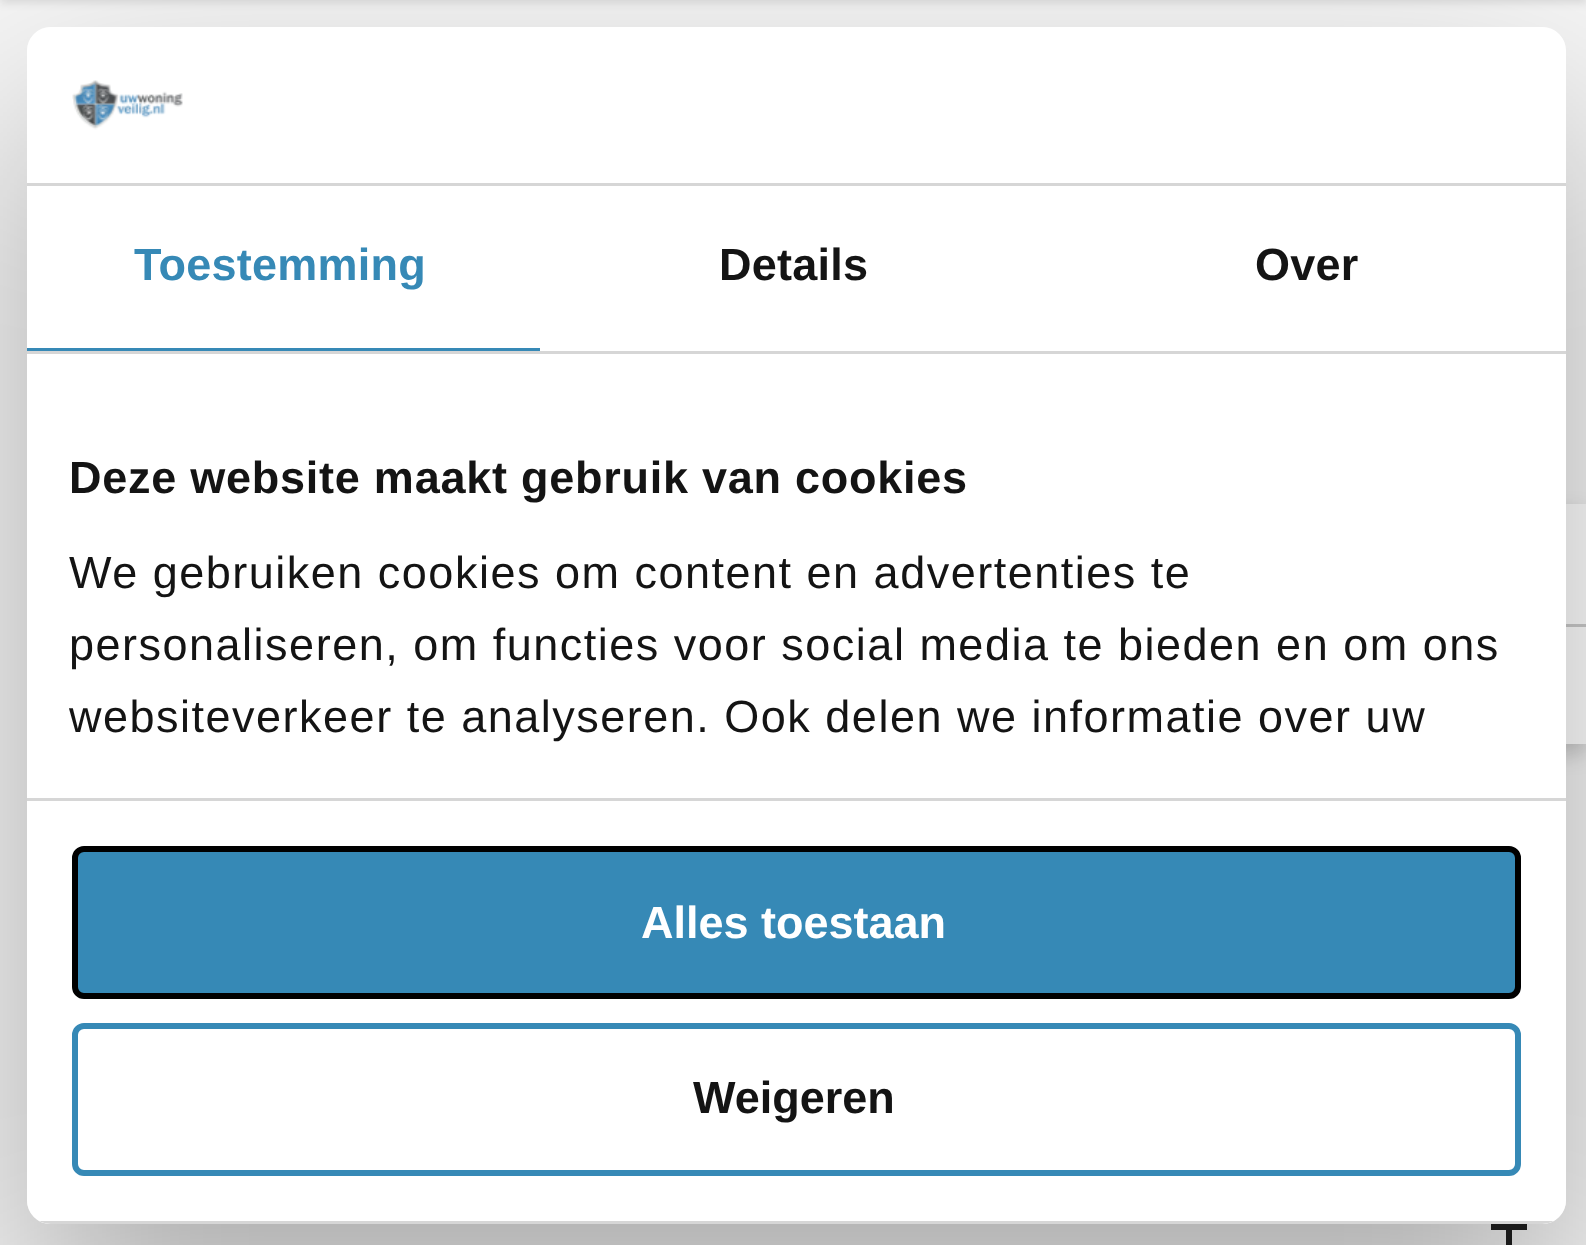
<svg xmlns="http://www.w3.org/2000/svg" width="1586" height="1245">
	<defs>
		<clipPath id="clip1"><path d="M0 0H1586V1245H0ZM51 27H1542C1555.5 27 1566 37.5 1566 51V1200C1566 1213.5 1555.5 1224 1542 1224H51C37.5 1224 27 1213.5 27 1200V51C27 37.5 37.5 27 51 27Z" clip-rule="evenodd" /></clipPath>
		<clipPath id="clip2"><rect x="27" y="27" width="1539" height="1197" rx="24" /></clipPath>
	</defs>
	<rect width="100%" height="100%" fill="#F5F5F5" />
	<rect x="0" y="-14" width="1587" height="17" fill="#000000" fill-opacity="0.1" filter="blur(4.5px)" />
	<rect x="1491" y="1224" width="36" height="6" fill="#202020" />
	<rect x="1506" y="1230" width="6" height="15" fill="#202020" />
	<rect x="1467" y="513" width="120" height="240" fill="#000000" fill-opacity="0.2" filter="blur(10.5px)" />
	<rect x="1566" y="504" width="20" height="240" fill="#FFFFFF" />
	<rect x="1566" y="624" width="20" height="3" fill="#CCCCCC" />
	<g clip-path="url(#clip1)">
		<rect x="27" y="123" width="1539" height="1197" rx="24" fill="#000000" fill-opacity="0.3" filter="blur(102px)" />
	</g>
	<rect x="27" y="27" width="1539" height="1197" rx="24" fill="#FFFFFF" />
	<rect x="27" y="183" width="1539" height="3" fill="#D6D6D6" />
	<image x="72" y="80" width="111" height="50" href="assets/img1.png" />
	<rect x="27" y="351" width="1539" height="3" fill="#D6D6D6" />
	<rect x="27" y="348" width="513" height="3" fill="#3689B6" />
	<text x="134" y="280" font-family="Liberation Sans" font-size="45" font-weight="700" letter-spacing="0.25" fill="#3689B6">Toestemming</text>
	<g font-family="Liberation Sans" font-size="45" font-weight="700" letter-spacing="0.25" fill="#141414">
		<text x="719" y="280">Details</text>
		<text x="1255" y="280">Over</text>
	</g>
	<rect x="27" y="798" width="1539" height="3" fill="#D6D6D6" />
	<text x="69" y="493" font-family="Liberation Sans" font-size="45" font-weight="700" letter-spacing="0.75" fill="#141414">Deze website maakt gebruik van cookies</text>
	<g font-family="Liberation Sans" font-size="45" letter-spacing="1.5" fill="#141414">
		<text x="69" y="588">We gebruiken cookies om content en advertenties te</text>
		<text x="69" y="660">personaliseren, om functies voor social media te bieden en om ons</text>
		<text x="69" y="732">websiteverkeer te analyseren. Ook delen we informatie over uw</text>
	</g>
	<g clip-path="url(#clip2)">
		<rect x="39" y="1221" width="1515" height="3" fill="#D6D6D6" />
	</g>
	<rect x="75" y="849" width="1443" height="147" rx="9" fill="#3689B6" stroke="#000000" stroke-width="6" />
	<text x="641" y="938" font-family="Liberation Sans" font-size="45" font-weight="700" fill="#FFFFFF">Alles toestaan</text>
	<rect x="75" y="1026" width="1443" height="147" rx="9" fill="none" stroke="#3689B6" stroke-width="6" />
	<text x="693" y="1113" font-family="Liberation Sans" font-size="45" font-weight="700" fill="#141414">Weigeren</text>
</svg>
